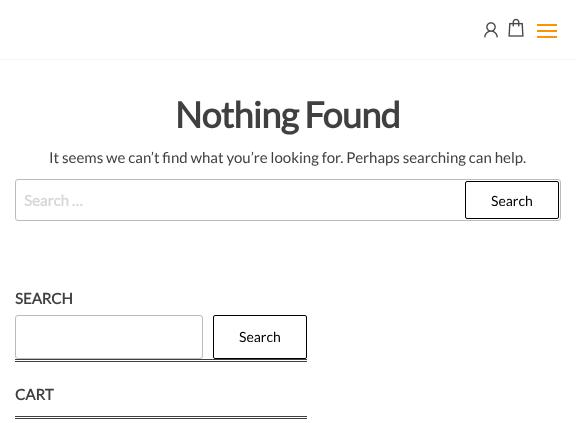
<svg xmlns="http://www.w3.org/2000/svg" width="576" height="423">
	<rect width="100%" height="100%" fill="#FFFFFF" />
	<rect x="0" y="59" width="576" height="1" fill="#F6F6F6" />
	<image x="484" y="22" width="14" height="16" href="assets/img1.png" />
	<image x="508" y="18" width="16" height="19" href="assets/img2.png" />
	<circle cx="528" cy="15" r="9.5" fill="#FFFFFF" stroke="#FFFFFF" />
	<rect x="537" y="30" width="20" height="2" fill="#FF9200" />
	<rect x="537" y="24" width="20" height="2" fill="#FF9200" />
	<rect x="537" y="36" width="20" height="2" fill="#FF9200" />
	<text x="175" y="128" font-family="Lato" font-size="36" font-weight="700" letter-spacing="-0.75" fill="#404040">Nothing Found</text>
	<text x="49" y="163" font-family="Lato" font-size="15" fill="#404040">It seems we can’t find what you’re looking for. Perhaps searching can help.</text>
	<rect x="15.5" y="179.5" width="545" height="41" rx="2.5" fill="none" stroke="#BBBBBB" />
	<text x="24" y="206" font-family="Lato" font-size="15" font-weight="700" fill="#D7D7D7">Search …</text>
	<rect x="465.5" y="181.5" width="93" height="37" rx="1.5" fill="none" stroke="#000000" />
	<text x="491" y="206" font-family="Lato" font-size="14" fill="#000000">Search</text>
	<rect x="15" y="359" width="292" height="1" fill="#404040" />
	<rect x="15" y="361" width="292" height="1" fill="#404040" />
	<text x="15" y="304" font-family="Lato" font-size="15" font-weight="700" fill="#404040">SEARCH</text>
	<rect x="15.5" y="315.5" width="187" height="43" rx="2.5" fill="none" stroke="#BBBBBB" />
	<rect x="213.5" y="315.5" width="93" height="43" rx="1.5" fill="none" stroke="#000000" />
	<text x="239" y="342" font-family="Lato" font-size="14" fill="#000000">Search</text>
	<rect x="15" y="416" width="292" height="1" fill="#404040" />
	<rect x="15" y="418" width="292" height="1" fill="#404040" />
	<text x="15" y="400" font-family="Lato" font-size="15" font-weight="700" fill="#404040">CART</text>
</svg>
